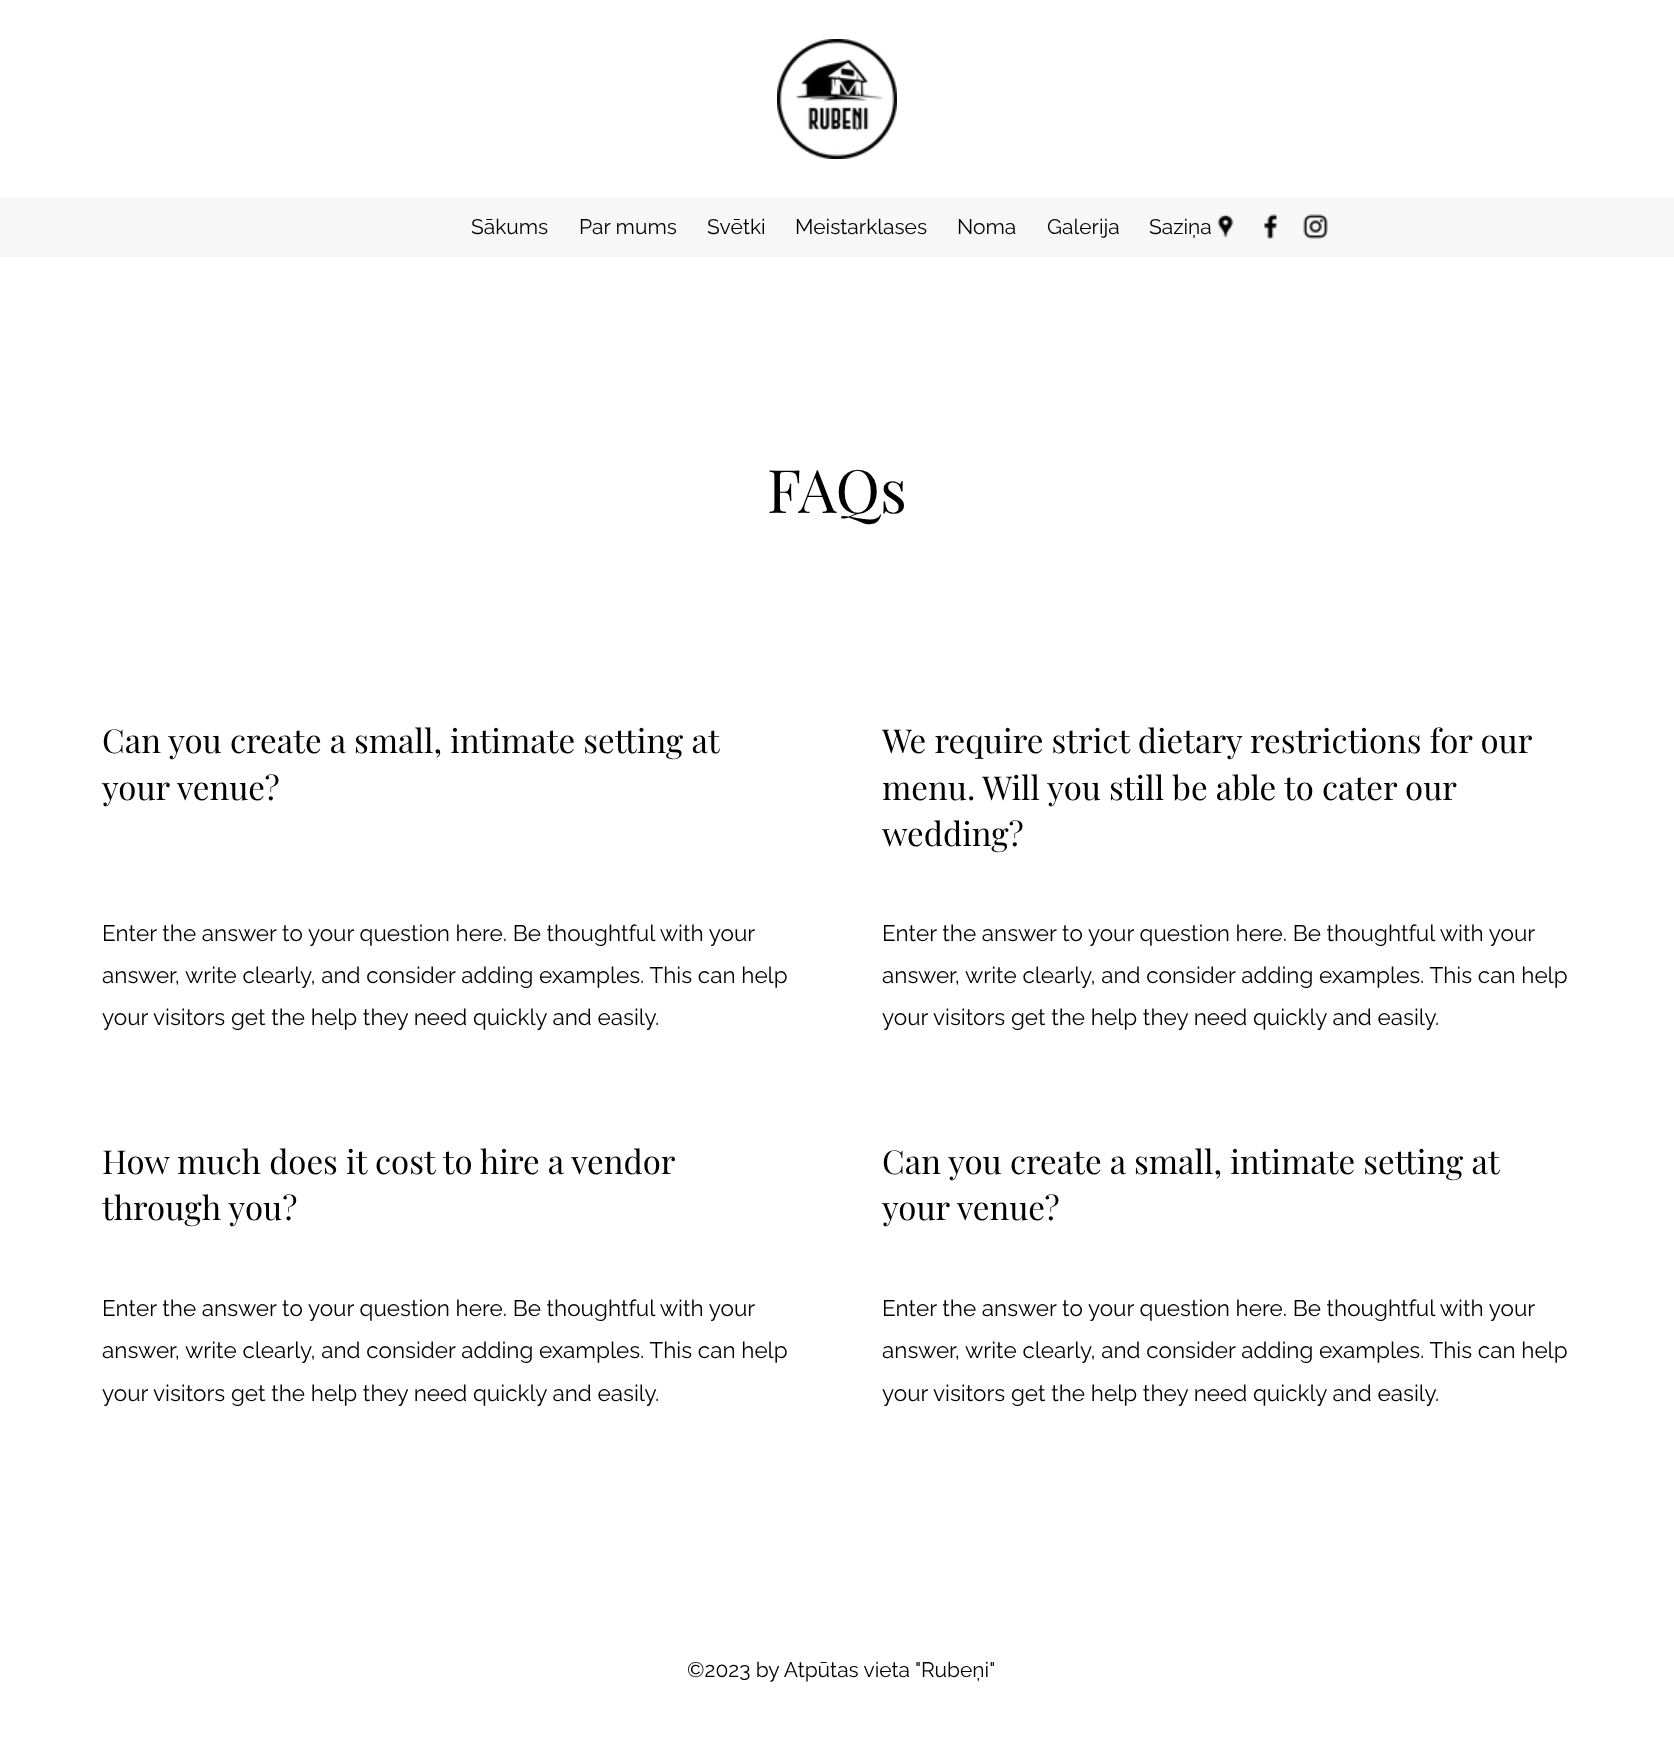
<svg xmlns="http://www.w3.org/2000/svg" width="1674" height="1737">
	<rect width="100%" height="100%" fill="#FFFFFF" />
	<image x="777" y="39" width="120" height="120" href="assets/img1.png" />
	<rect x="0" y="197" width="1674" height="60" fill="#F7F7F7" />
	<g font-family="Raleway" font-size="21" fill="#000000">
		<text x="471" y="234">Sākums</text>
		<text x="579" y="234">Par mums</text>
		<text x="707" y="234">Svētki</text>
		<text x="795" y="234">Meistarklases</text>
		<text x="957" y="234">Noma</text>
		<text x="1047" y="234">Galerija</text>
		<text x="1149" y="234">Saziņa</text>
	</g>
	<image x="1217" y="214" width="17" height="24" href="assets/img2.png" />
	<image x="1264" y="214" width="14" height="25" href="assets/img3.png" />
	<image x="1303" y="214" width="25" height="25" href="assets/img4.png" />
	<text x="767" y="513" font-family="Playfair Display" font-size="60" fill="#000000">FAQs</text>
	<g font-family="Playfair Display" font-size="33" fill="#000000">
		<text x="102" y="753">Can you create a small, intimate setting at</text>
		<text x="102" y="800">your venue?</text>
	</g>
	<g font-family="Raleway" font-size="22.5" fill="#000000">
		<text x="102" y="941">Enter the answer to your question here. Be thoughtful with your</text>
		<text x="102" y="983">answer, write clearly, and consider adding examples. This can help</text>
		<text x="102" y="1025">your visitors get the help they need quickly and easily.</text>
	</g>
	<g font-family="Playfair Display" font-size="33" fill="#000000">
		<text x="882" y="753">We require strict dietary restrictions for our</text>
		<text x="882" y="800">menu. Will you still be able to cater our</text>
		<text x="882" y="846">wedding?</text>
	</g>
	<g font-family="Raleway" font-size="22.5" fill="#000000">
		<text x="882" y="941">Enter the answer to your question here. Be thoughtful with your</text>
		<text x="882" y="983">answer, write clearly, and consider adding examples. This can help</text>
		<text x="882" y="1025">your visitors get the help they need quickly and easily.</text>
	</g>
	<g font-family="Playfair Display" font-size="33" fill="#000000">
		<text x="102" y="1174">How much does it cost to hire a vendor</text>
		<text x="102" y="1220">through you?</text>
	</g>
	<g font-family="Raleway" font-size="22.5" fill="#000000">
		<text x="102" y="1316">Enter the answer to your question here. Be thoughtful with your</text>
		<text x="102" y="1358">answer, write clearly, and consider adding examples. This can help</text>
		<text x="102" y="1401">your visitors get the help they need quickly and easily.</text>
	</g>
	<g font-family="Playfair Display" font-size="33" fill="#000000">
		<text x="882" y="1174">Can you create a small, intimate setting at</text>
		<text x="882" y="1220">your venue?</text>
	</g>
	<g font-family="Raleway" font-size="22.5" fill="#000000">
		<text x="882" y="1316">Enter the answer to your question here. Be thoughtful with your</text>
		<text x="882" y="1358">answer, write clearly, and consider adding examples. This can help</text>
		<text x="882" y="1401">your visitors get the help they need quickly and easily.</text>
	</g>
	<text x="687" y="1677" font-family="Raleway" font-size="21" fill="#000000">©2023 by Atpūtas vieta "Rubeņi"</text>
</svg>
